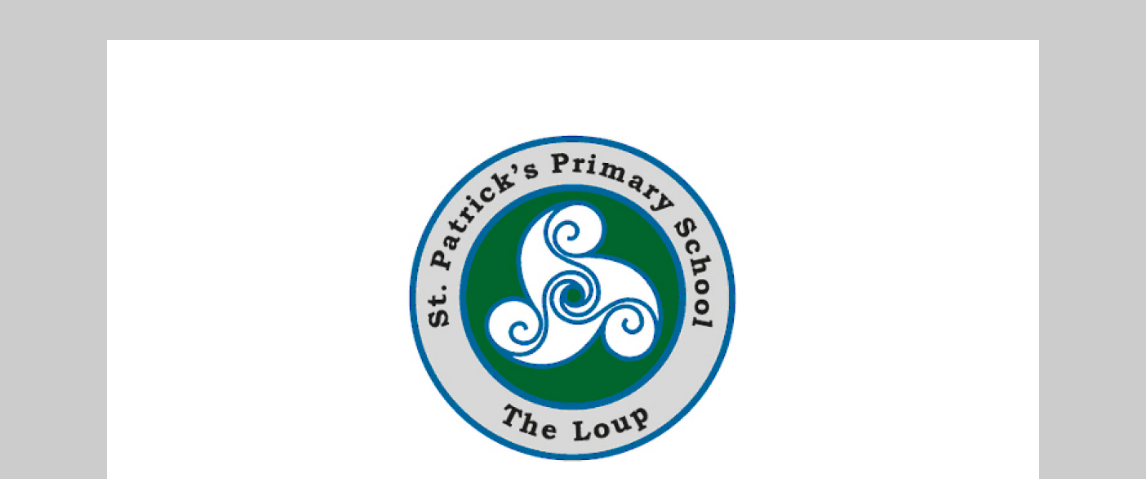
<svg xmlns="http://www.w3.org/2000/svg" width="1146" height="479">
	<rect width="100%" height="100%" fill="#CCCCCC" />
	<rect x="107" y="40" width="932" height="439" fill="#FFFFFF" />
	<image x="408" y="134" width="329" height="328" href="assets/img1.png" />
</svg>
